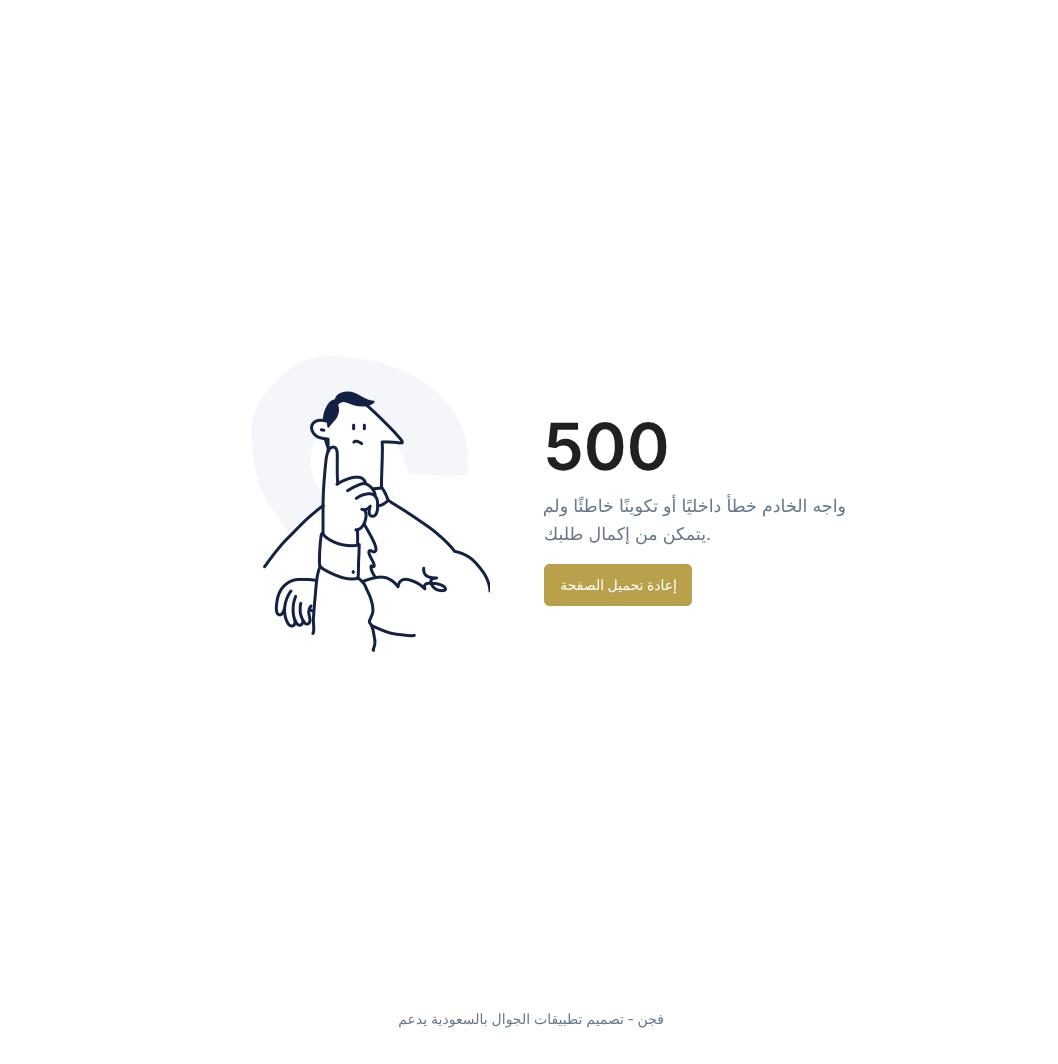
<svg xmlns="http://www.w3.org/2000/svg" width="1058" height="1064">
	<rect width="100%" height="100%" fill="#FFFFFF" />
	<text x="544" y="470" font-family="Inter" font-size="65" font-weight="600" fill="#1E2022">500</text>
	<text x="846" y="512" word-spacing="-0.5" font-family="DejaVu Sans" font-size="17.5" direction="rtl" fill="#677788">واجه الخادم خطأ داخليًا أو تكوينًا خاطئًا ولم</text>
	<text x="706" y="540" font-family="Inter" font-size="17.5" fill="#677788">.</text>
	<text x="706" y="540" word-spacing="-0.5" font-family="DejaVu Sans" font-size="17.5" direction="rtl" fill="#677788">يتمكن من إكمال طلبك</text>
	<rect x="544.5" y="564.5" width="147" height="41" rx="4.5" fill="#B9A14B" stroke="#B9A14B" />
	<text x="677" y="590" word-spacing="-1" font-family="DejaVu Sans" font-size="14" direction="rtl" fill="#FFFFFF">إعادة تحميل الصفحة</text>
	<image x="251" y="356" width="239" height="296" href="assets/img1.png" />
	<text x="664" y="1024" font-family="DejaVu Sans" font-size="14" direction="rtl" fill="#677788">فجن</text>
	<text x="634" y="1024" font-family="Inter" font-size="14" direction="rtl" fill="#677788">-</text>
	<text x="624" y="1024" word-spacing="-0.5" font-family="DejaVu Sans" font-size="14" direction="rtl" fill="#677788">تصميم تطبيقات الجوال بالسعودية يدعم</text>
</svg>
